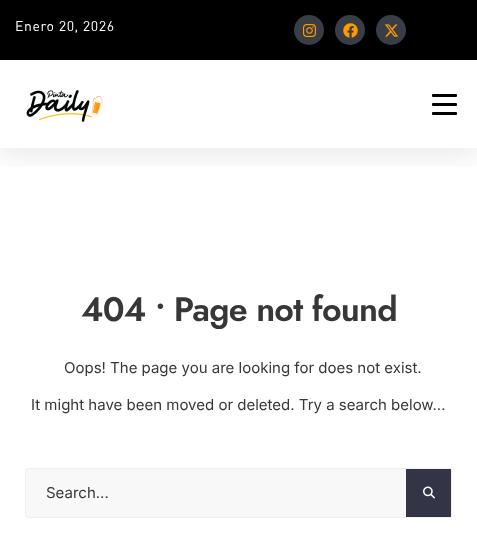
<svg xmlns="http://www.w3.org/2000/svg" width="477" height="559">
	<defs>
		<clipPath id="clip1"><rect x="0" y="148" width="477" height="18" /></clipPath>
	</defs>
	<rect width="100%" height="100%" fill="#FFFFFF" />
	<g clip-path="url(#clip1)">
		<rect x="0" y="5" width="477" height="148" fill="#000000" fill-opacity="0.1" filter="blur(15px)" />
	</g>
	<rect x="0" y="0" width="477" height="60" fill="#000000" />
	<text x="15" y="31" font-family="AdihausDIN" font-size="14" letter-spacing="0.6" fill="#FFFFFF">Enero 20, 2026</text>
	<circle cx="309" cy="30" r="15" fill="#393E46" />
	<image x="303" y="24" width="14" height="13" href="assets/img1.png" />
	<circle cx="350" cy="30" r="15" fill="#393E46" />
	<image x="343" y="23" width="15" height="15" href="assets/img2.png" />
	<circle cx="391" cy="30" r="15" fill="#393E46" />
	<image x="384" y="24" width="15" height="13" href="assets/img3.png" />
	<image x="26" y="90" width="86" height="32" href="assets/img4.png" />
	<rect x="432" y="103" width="25" height="3" rx="1" fill="#000000" />
	<rect x="432" y="94" width="25" height="3" rx="1" fill="#000000" />
	<rect x="432" y="112" width="25" height="3" rx="1" fill="#000000" />
	<text x="81" y="321" font-family="Jost" font-size="34" font-weight="600" letter-spacing="-0.8" fill="#373737">404 • Page not found</text>
	<g font-family="Inter" font-size="15" fill="#373737">
		<text x="64" y="373">Oops! The page you are looking for does not exist.</text>
		<text x="31" y="410">It might have been moved or deleted. Try a search below...</text>
	</g>
	<rect x="25.5" y="468.5" width="426" height="49" rx="2.5" fill="#F8F8F8" stroke="#EFEFEF" />
	<text x="46" y="498" font-family="Inter" font-size="15" fill="#373737">Search...</text>
	<rect x="406" y="469" width="45" height="48" fill="#333446" />
	<image x="423" y="486" width="12" height="13" href="assets/img5.png" />
</svg>
